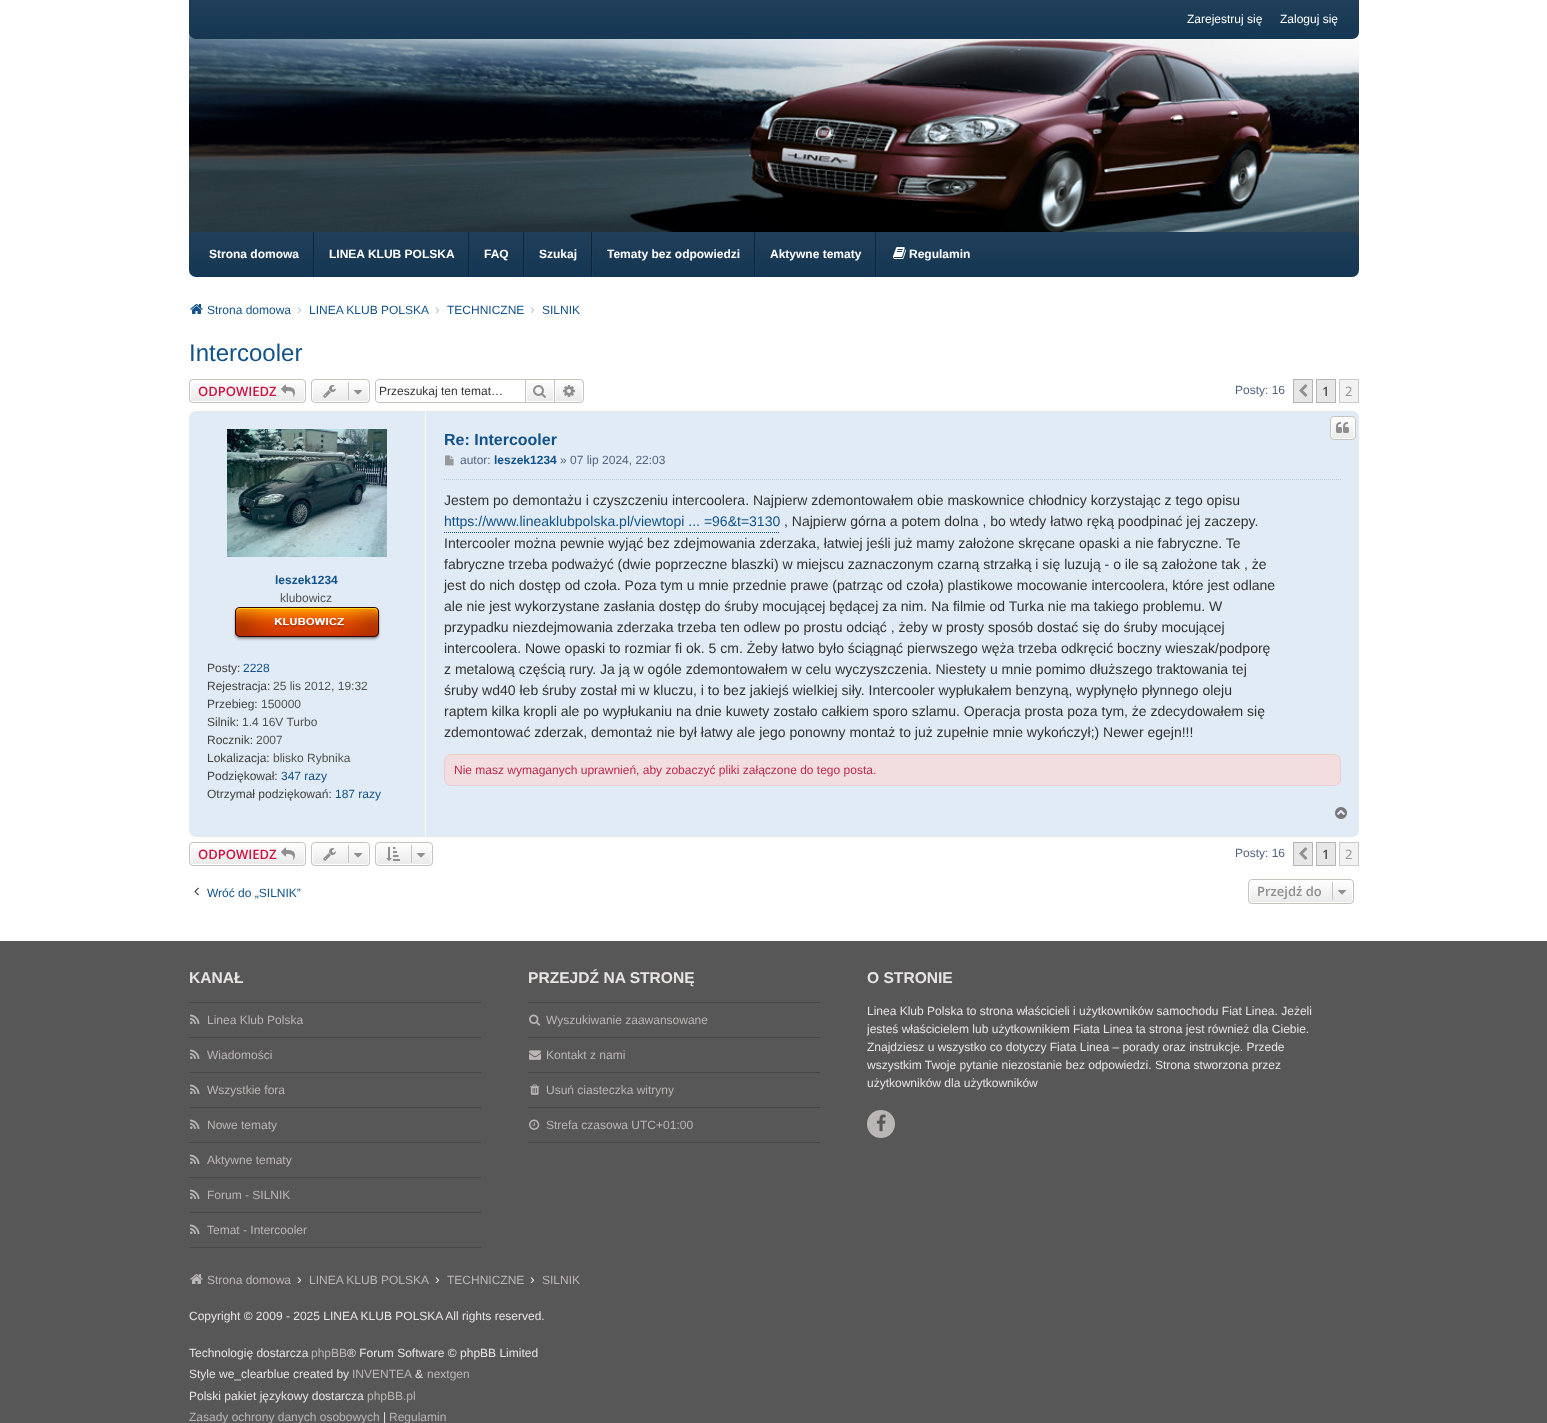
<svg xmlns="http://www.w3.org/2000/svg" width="1547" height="1423">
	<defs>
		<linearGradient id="g1" gradientUnits="userSpaceOnUse" x1="774" y1="0" x2="774" y2="39"><stop offset="0" stop-color="#1F3E59" /><stop offset="1" stop-color="#153753" /></linearGradient>
		<linearGradient id="g2" gradientUnits="userSpaceOnUse" x1="774" y1="232" x2="774" y2="277"><stop offset="0" stop-color="#1F3E59" /><stop offset="1" stop-color="#153753" /></linearGradient>
		<clipPath id="clip1"><rect x="189" y="379" width="117" height="24" rx="4" /></clipPath>
		<linearGradient id="g3" gradientUnits="userSpaceOnUse" x1="248" y1="380" x2="248" y2="402"><stop offset="0" stop-color="#FFFFFF" /><stop offset="1" stop-color="#E9E9E9" /></linearGradient>
		<clipPath id="clip2"><rect x="311" y="379" width="59" height="24" rx="4" /></clipPath>
		<linearGradient id="g4" gradientUnits="userSpaceOnUse" x1="341" y1="380" x2="341" y2="402"><stop offset="0" stop-color="#FFFFFF" /><stop offset="1" stop-color="#E9E9E9" /></linearGradient>
		<linearGradient id="g5" gradientUnits="userSpaceOnUse" x1="540" y1="380" x2="540" y2="402"><stop offset="0" stop-color="#FFFFFF" /><stop offset="1" stop-color="#E9E9E9" /></linearGradient>
		<linearGradient id="g6" gradientUnits="userSpaceOnUse" x1="569" y1="380" x2="569" y2="402"><stop offset="0" stop-color="#FFFFFF" /><stop offset="1" stop-color="#E9E9E9" /></linearGradient>
		<clipPath id="clip3"><rect x="1330" y="416" width="26" height="24" rx="4" /></clipPath>
		<linearGradient id="g7" gradientUnits="userSpaceOnUse" x1="1343" y1="417" x2="1343" y2="439"><stop offset="0" stop-color="#FFFFFF" /><stop offset="1" stop-color="#E9E9E9" /></linearGradient>
		<clipPath id="clip4"><rect x="189" y="842" width="117" height="24" rx="4" /></clipPath>
		<linearGradient id="g8" gradientUnits="userSpaceOnUse" x1="248" y1="843" x2="248" y2="865"><stop offset="0" stop-color="#FFFFFF" /><stop offset="1" stop-color="#E9E9E9" /></linearGradient>
		<clipPath id="clip5"><rect x="311" y="842" width="59" height="24" rx="4" /></clipPath>
		<linearGradient id="g9" gradientUnits="userSpaceOnUse" x1="341" y1="843" x2="341" y2="865"><stop offset="0" stop-color="#FFFFFF" /><stop offset="1" stop-color="#E9E9E9" /></linearGradient>
		<clipPath id="clip6"><rect x="375" y="842" width="58" height="24" rx="4" /></clipPath>
		<linearGradient id="g10" gradientUnits="userSpaceOnUse" x1="404" y1="843" x2="404" y2="865"><stop offset="0" stop-color="#FFFFFF" /><stop offset="1" stop-color="#E9E9E9" /></linearGradient>
		<clipPath id="clip7"><rect x="1248" y="879" width="106" height="25" rx="4" /></clipPath>
		<linearGradient id="g11" gradientUnits="userSpaceOnUse" x1="1301" y1="880" x2="1301" y2="903"><stop offset="0" stop-color="#FFFFFF" /><stop offset="1" stop-color="#E9E9E9" /></linearGradient>
	</defs>
	<rect width="100%" height="100%" fill="#FFFFFF" />
	<image x="189" y="32" width="1170" height="207" href="assets/img1.png" />
	<path d="M189 0H1359V32C1359 36 1356 39 1352 39H196C192 39 189 36 189 32Z" fill="url(#g1)" />
	<g font-family="Liberation Sans" font-size="12" fill="#FFFFFF">
		<text x="1187" y="23">Zarejestruj się</text>
		<text x="1280" y="23">Zaloguj się</text>
	</g>
	<rect x="189" y="232" width="1170" height="45" rx="7" fill="url(#g2)" />
	<rect x="313" y="232" width="1" height="45" fill="#102435" />
	<text x="209" y="258" font-family="Liberation Sans" font-size="12" font-weight="700" fill="#FFFFFF">Strona domowa</text>
	<rect x="468" y="232" width="1" height="45" fill="#102435" />
	<rect x="314" y="232" width="1" height="45" fill="#1C3E5C" />
	<text x="329" y="258" font-family="Liberation Sans" font-size="12" font-weight="700" fill="#FFFFFF">LINEA KLUB POLSKA</text>
	<rect x="523" y="232" width="1" height="45" fill="#102435" />
	<rect x="469" y="232" width="1" height="45" fill="#1C3E5C" />
	<text x="484" y="258" font-family="Liberation Sans" font-size="12" font-weight="700" fill="#FFFFFF">FAQ</text>
	<rect x="591" y="232" width="1" height="45" fill="#102435" />
	<rect x="524" y="232" width="1" height="45" fill="#1C3E5C" />
	<text x="539" y="258" font-family="Liberation Sans" font-size="12" font-weight="700" fill="#FFFFFF">Szukaj</text>
	<rect x="754" y="232" width="1" height="45" fill="#102435" />
	<rect x="592" y="232" width="1" height="45" fill="#1C3E5C" />
	<text x="607" y="258" font-family="Liberation Sans" font-size="12" font-weight="700" fill="#FFFFFF">Tematy bez odpowiedzi</text>
	<rect x="875" y="232" width="1" height="45" fill="#102435" />
	<rect x="755" y="232" width="1" height="45" fill="#1C3E5C" />
	<text x="770" y="258" font-family="Liberation Sans" font-size="12" font-weight="700" fill="#FFFFFF">Aktywne tematy</text>
	<rect x="876" y="232" width="1" height="45" fill="#1C3E5C" />
	<image x="893" y="247" width="13" height="12" href="assets/img2.png" />
	<text x="909" y="258" font-family="Liberation Sans" font-size="12" font-weight="700" fill="#FFFFFF">Regulamin</text>
	<image x="190" y="304" width="13" height="10" href="assets/img3.png" />
	<text x="207" y="314" font-family="Liberation Sans" font-size="12" fill="#105289">Strona domowa</text>
	<text x="297" y="314" font-family="Liberation Sans" font-size="14" fill="#B7C9D7">›</text>
	<text x="309" y="314" font-family="Liberation Sans" font-size="12" fill="#105289">LINEA KLUB POLSKA</text>
	<text x="435" y="314" font-family="Liberation Sans" font-size="14" fill="#B7C9D7">›</text>
	<text x="447" y="314" font-family="Liberation Sans" font-size="12" fill="#105289">TECHNICZNE</text>
	<text x="530" y="314" font-family="Liberation Sans" font-size="14" fill="#B7C9D7">›</text>
	<text x="542" y="314" font-family="Liberation Sans" font-size="12" fill="#105289">SILNIK</text>
	<text x="189" y="361" font-family="Liberation Sans" font-size="24" fill="#105289">Intercooler</text>
	<g clip-path="url(#clip1)">
		<rect x="189" y="380" width="117" height="22" fill="url(#g3)" />
	</g>
	<rect x="190.5" y="380.5" width="114" height="21" rx="2.5" fill="none" stroke="#FFFFFF" />
	<rect x="189.5" y="379.5" width="116" height="23" rx="3.5" fill="none" stroke="#C7C3BF" />
	<text x="198" y="396" font-family="Open Sans" font-size="13" font-weight="600" fill="#D31141">ODPOWIEDZ</text>
	<image x="281" y="384" width="14" height="13" href="assets/img4.png" />
	<g clip-path="url(#clip2)">
		<rect x="311" y="380" width="59" height="22" fill="url(#g4)" />
	</g>
	<rect x="312.5" y="380.5" width="56" height="21" rx="2.5" fill="none" stroke="#FFFFFF" />
	<rect x="311.5" y="379.5" width="58" height="23" rx="3.5" fill="none" stroke="#C7C3BF" />
	<image x="323" y="385" width="13" height="13" href="assets/img5.png" />
	<rect x="348" y="382" width="1" height="18" fill="#C7C3BF" />
	<image x="354" y="390" width="8" height="5" href="assets/img6.png" />
	<path d="M379 379H525V403H379C377 403 375 401 375 399V383C375 381 377 379 379 379ZM379 380H525V402H379C377 402 376 401 376 399V383C376 381 377 380 379 380Z" fill="#C7C3BF" fill-rule="evenodd" />
	<text x="379" y="395" font-family="Liberation Sans" font-size="12" fill="#333333">Przeszukaj ten temat…</text>
	<rect x="527" y="383" width="26" height="18" fill="url(#g5)" />
	<rect x="525.5" y="379.5" width="29" height="23" fill="none" stroke="#C7C3BF" />
	<image x="533" y="385" width="13" height="13" href="assets/img7.png" />
	<path d="M555.5 380.5H580C581.5 380.5 582.5 381.5 582.5 383V399C582.5 400.5 581.5 401.5 580 401.5H555.5Z" fill="url(#g6)" stroke="#FFFFFF" />
	<path d="M555 379H580C582 379 584 381 584 383V399C584 401 582 403 580 403H555ZM555 380H580C581.5 380 583 381.5 583 383V399C583 400.5 581.5 402 580 402H555Z" fill="#C7C3BF" fill-rule="evenodd" />
	<image x="563" y="385" width="12" height="12" href="assets/img8.png" />
	<text x="1235" y="394" font-family="Liberation Sans" font-size="12" fill="#536482">Posty: 16</text>
	<rect x="1293.5" y="379.5" width="19" height="23" fill="#E7E7E7" stroke="#B5B5B5" />
	<image x="1299" y="384" width="9" height="13" href="assets/img9.png" />
	<rect x="1316.5" y="379.5" width="19" height="23" fill="#E7E7E7" stroke="#B5B5B5" />
	<text x="1322" y="396" font-family="Open Sans" font-size="13" font-weight="600" fill="#525252">1</text>
	<rect x="1339.5" y="379.5" width="19" height="23" fill="#F2F2F2" stroke="#CACACA" />
	<text x="1345" y="396" font-family="Open Sans" font-size="13" fill="#959595">2</text>
	<path d="M196 411H426V837H196C192 837 189 834 189 830V418C189 414 192 411 196 411Z" fill="#E1EBF5" />
	<rect x="425" y="411" width="1" height="426" fill="#FFFFFF" />
	<image x="227" y="429" width="160" height="128" href="assets/img10.png" />
	<text x="275" y="584" font-family="Liberation Sans" font-size="12" font-weight="700" fill="#105289">leszek1234</text>
	<text x="280" y="602" font-family="Liberation Sans" font-size="12" fill="#525252">klubowicz</text>
	<image x="233" y="607" width="148" height="34" href="assets/img11.png" />
	<text x="207" y="672" font-family="Liberation Sans" font-size="12" fill="#414141">Posty:</text>
	<text x="243" y="672" font-family="Liberation Sans" font-size="12" fill="#105289">2228</text>
	<text x="207" y="690" font-family="Liberation Sans" font-size="12" fill="#414141">Rejestracja:</text>
	<text x="273" y="690" font-family="Liberation Sans" font-size="12" fill="#525252">25 lis 2012, 19:32</text>
	<text x="207" y="708" font-family="Liberation Sans" font-size="12" fill="#414141">Przebieg:</text>
	<text x="261" y="708" font-family="Liberation Sans" font-size="12" fill="#525252">150000</text>
	<text x="207" y="726" font-family="Liberation Sans" font-size="12" fill="#414141">Silnik:</text>
	<text x="242" y="726" font-family="Liberation Sans" font-size="12" fill="#525252">1.4 16V Turbo</text>
	<text x="207" y="744" font-family="Liberation Sans" font-size="12" fill="#414141">Rocznik:</text>
	<text x="256" y="744" font-family="Liberation Sans" font-size="12" fill="#525252">2007</text>
	<text x="207" y="762" font-family="Liberation Sans" font-size="12" fill="#414141">Lokalizacja:</text>
	<text x="273" y="762" font-family="Liberation Sans" font-size="12" fill="#525252">blisko Rybnika</text>
	<text x="207" y="780" font-family="Liberation Sans" font-size="12" fill="#414141">Podziękował:</text>
	<text x="281" y="780" font-family="Liberation Sans" font-size="12" fill="#105289">347 razy</text>
	<text x="207" y="798" font-family="Liberation Sans" font-size="12" fill="#414141">Otrzymał podziękowań:</text>
	<text x="335" y="798" font-family="Liberation Sans" font-size="12" fill="#105289">187 razy</text>
	<path d="M426 411H1352C1356 411 1359 414 1359 418V830C1359 834 1356 837 1352 837H426Z" fill="#E1EBF5" />
	<text x="444" y="445" font-family="Liberation Sans" font-size="16" font-weight="700" fill="#105289">Re: Intercooler</text>
	<g clip-path="url(#clip3)">
		<rect x="1330" y="417" width="26" height="22" fill="url(#g7)" />
	</g>
	<rect x="1331.5" y="417.5" width="23" height="21" rx="2.5" fill="none" stroke="#FFFFFF" />
	<rect x="1330.5" y="416.5" width="25" height="23" rx="3.5" fill="none" stroke="#C7C3BF" />
	<image x="1336" y="422" width="13" height="11" href="assets/img12.png" />
	<path d="M444 479.5H1341" fill="none" stroke="#B7C9D7" stroke-dasharray="1 1" />
	<image x="445" y="455" width="9" height="11" href="assets/img13.png" />
	<text x="460" y="464" font-family="Liberation Sans" font-size="12" fill="#536482">autor:</text>
	<text x="494" y="464" font-family="Liberation Sans" font-size="12" font-weight="700" fill="#105289">leszek1234</text>
	<text x="560" y="464" font-family="Liberation Sans" font-size="12" fill="#536482">» 07 lip 2024, 22:03</text>
	<text x="444" y="505" font-family="Liberation Sans" font-size="14" fill="#333333">Jestem po demontażu i czyszczeniu intercoolera. Najpierw zdemontowałem obie maskownice chłodnicy korzystając z tego opisu</text>
	<path d="M444 532.5H780" fill="none" stroke="#105289" stroke-dasharray="1 1" />
	<text x="444" y="526" font-family="Liberation Sans" font-size="14" fill="#105289">https://www.lineaklubpolska.pl/viewtopi ... =96&amp;t=3130</text>
	<g font-family="Liberation Sans" font-size="14" fill="#333333">
		<text x="784" y="526">, Najpierw górna a potem dolna , bo wtedy łatwo ręką poodpinać jej zaczepy.</text>
		<text x="444" y="548">Intercooler można pewnie wyjąć bez zdejmowania zderzaka, łatwiej jeśli już mamy założone skręcane opaski a nie fabryczne. Te</text>
		<text x="444" y="569">fabryczne trzeba podważyć (dwie poprzeczne blaszki) w miejscu zaznaczonym czarną strzałką i się luzują - o ile są założone tak , że</text>
		<text x="444" y="590">jest do nich dostęp od czoła. Poza tym u mnie przednie prawe (patrząc od czoła) plastikowe mocowanie intercoolera, które jest odlane</text>
		<text x="444" y="611">ale nie jest wykorzystane zasłania dostęp do śruby mocującej będącej za nim. Na filmie od Turka nie ma takiego problemu. W</text>
		<text x="444" y="632">przypadku niezdejmowania zderzaka trzeba ten odlew po prostu odciąć , żeby w prosty sposób dostać się do śruby mocującej</text>
		<text x="444" y="653">intercoolera. Nowe opaski to rozmiar fi ok. 5 cm. Żeby łatwo było ściągnąć pierwszego węża trzeba odkręcić boczny wieszak/podporę</text>
		<text x="444" y="674">z metalową częścią rury. Ja ją w ogóle zdemontowałem w celu wyczyszczenia. Niestety u mnie pomimo dłuższego traktowania tej</text>
		<text x="444" y="695">śruby wd40 łeb śruby został mi w kluczu, i to bez jakiejś wielkiej siły. Intercooler wypłukałem benzyną, wypłynęło płynnego oleju</text>
		<text x="444" y="716">raptem kilka kropli ale po wypłukaniu na dnie kuwety zostało całkiem sporo szlamu. Operacja prosta poza tym, że zdecydowałem się</text>
		<text x="444" y="737">zdemontować zderzak, demontaż nie był łatwy ale jego ponowny montaż to już zupełnie mnie wykończył;) Newer egejn!!!</text>
	</g>
	<rect x="444.5" y="754.5" width="896" height="31" rx="6.5" fill="#F2DEDE" stroke="#EBCCD1" />
	<text x="454" y="774" font-family="Liberation Sans" font-size="12" fill="#BC2A4D">Nie masz wymaganych uprawnień, aby zobaczyć pliki załączone do tego posta.</text>
	<image x="1335" y="807" width="12" height="12" href="assets/img14.png" />
	<g clip-path="url(#clip4)">
		<rect x="189" y="843" width="117" height="22" fill="url(#g8)" />
	</g>
	<rect x="190.5" y="843.5" width="114" height="21" rx="2.5" fill="none" stroke="#FFFFFF" />
	<rect x="189.5" y="842.5" width="116" height="23" rx="3.5" fill="none" stroke="#C7C3BF" />
	<text x="198" y="859" font-family="Open Sans" font-size="13" font-weight="600" fill="#D31141">ODPOWIEDZ</text>
	<image x="281" y="847" width="14" height="13" href="assets/img4.png" />
	<g clip-path="url(#clip5)">
		<rect x="311" y="843" width="59" height="22" fill="url(#g9)" />
	</g>
	<rect x="312.5" y="843.5" width="56" height="21" rx="2.5" fill="none" stroke="#FFFFFF" />
	<rect x="311.5" y="842.5" width="58" height="23" rx="3.5" fill="none" stroke="#C7C3BF" />
	<image x="323" y="848" width="13" height="13" href="assets/img5.png" />
	<rect x="348" y="845" width="1" height="18" fill="#C7C3BF" />
	<image x="354" y="853" width="8" height="5" href="assets/img6.png" />
	<g clip-path="url(#clip6)">
		<rect x="375" y="843" width="58" height="22" fill="url(#g10)" />
	</g>
	<rect x="376.5" y="843.5" width="55" height="21" rx="2.5" fill="none" stroke="#FFFFFF" />
	<rect x="375.5" y="842.5" width="57" height="23" rx="3.5" fill="none" stroke="#C7C3BF" />
	<image x="386" y="847" width="14" height="14" href="assets/img15.png" />
	<rect x="411" y="845" width="1" height="18" fill="#C7C3BF" />
	<image x="417" y="853" width="8" height="5" href="assets/img6.png" />
	<text x="1235" y="857" font-family="Liberation Sans" font-size="12" fill="#536482">Posty: 16</text>
	<rect x="1293.5" y="842.5" width="19" height="23" fill="#E7E7E7" stroke="#B5B5B5" />
	<image x="1299" y="847" width="9" height="13" href="assets/img9.png" />
	<rect x="1316.5" y="842.5" width="19" height="23" fill="#E7E7E7" stroke="#B5B5B5" />
	<text x="1322" y="859" font-family="Open Sans" font-size="13" font-weight="600" fill="#525252">1</text>
	<rect x="1339.5" y="842.5" width="19" height="23" fill="#F2F2F2" stroke="#CACACA" />
	<text x="1345" y="859" font-family="Open Sans" font-size="13" fill="#959595">2</text>
	<image x="194" y="887" width="5" height="9" href="assets/img16.png" />
	<text x="207" y="897" font-family="Liberation Sans" font-size="12" fill="#105289">Wróć do „SILNIK”</text>
	<g clip-path="url(#clip7)">
		<rect x="1248" y="880" width="106" height="23" fill="url(#g11)" />
	</g>
	<rect x="1249.5" y="880.5" width="103" height="22" rx="2.5" fill="none" stroke="#FFFFFF" />
	<rect x="1248.5" y="879.5" width="105" height="24" rx="3.5" fill="none" stroke="#C7C3BF" />
	<text x="1257" y="896" font-family="Open Sans" font-size="13" font-weight="600" fill="#8F8F8F">Przejdź do</text>
	<rect x="1332" y="882" width="1" height="18" fill="#C7C3BF" />
	<image x="1338" y="890" width="8" height="5" href="assets/img6.png" />
	<rect x="0" y="941" width="1547" height="482" fill="#585757" />
	<text x="189" y="983" font-family="Liberation Sans" font-size="15.6" font-weight="700" fill="#E7E4E4">KANAŁ</text>
	<rect x="189" y="1002" width="292" height="1" fill="#474646" />
	<image x="190" y="1014" width="10" height="10" href="assets/img17.png" />
	<text x="207" y="1024" font-family="Liberation Sans" font-size="12" fill="#BAB6B6">Linea Klub Polska</text>
	<rect x="189" y="1037" width="292" height="1" fill="#474646" />
	<image x="190" y="1049" width="10" height="10" href="assets/img17.png" />
	<text x="207" y="1059" font-family="Liberation Sans" font-size="12" fill="#BAB6B6">Wiadomości</text>
	<rect x="189" y="1072" width="292" height="1" fill="#474646" />
	<image x="190" y="1084" width="10" height="10" href="assets/img17.png" />
	<text x="207" y="1094" font-family="Liberation Sans" font-size="12" fill="#BAB6B6">Wszystkie fora</text>
	<rect x="189" y="1107" width="292" height="1" fill="#474646" />
	<image x="190" y="1119" width="10" height="10" href="assets/img17.png" />
	<text x="207" y="1129" font-family="Liberation Sans" font-size="12" fill="#BAB6B6">Nowe tematy</text>
	<rect x="189" y="1142" width="292" height="1" fill="#474646" />
	<image x="190" y="1154" width="10" height="10" href="assets/img17.png" />
	<text x="207" y="1164" font-family="Liberation Sans" font-size="12" fill="#BAB6B6">Aktywne tematy</text>
	<rect x="189" y="1177" width="292" height="1" fill="#474646" />
	<image x="190" y="1189" width="10" height="10" href="assets/img17.png" />
	<text x="207" y="1199" font-family="Liberation Sans" font-size="12" fill="#BAB6B6">Forum - SILNIK</text>
	<rect x="189" y="1212" width="292" height="1" fill="#474646" />
	<rect x="189" y="1247" width="292" height="1" fill="#474646" />
	<image x="190" y="1224" width="10" height="10" href="assets/img17.png" />
	<text x="207" y="1234" font-family="Liberation Sans" font-size="12" fill="#BAB6B6">Temat - Intercooler</text>
	<text x="528" y="983" font-family="Liberation Sans" font-size="15.6" font-weight="700" fill="#E7E4E4">PRZEJDŹ NA STRONĘ</text>
	<rect x="528" y="1002" width="292" height="1" fill="#474646" />
	<image x="529" y="1014" width="12" height="12" href="assets/img18.png" />
	<text x="546" y="1024" font-family="Liberation Sans" font-size="12" fill="#BAB6B6">Wyszukiwanie zaawansowane</text>
	<rect x="528" y="1037" width="292" height="1" fill="#474646" />
	<image x="529" y="1050" width="12" height="10" href="assets/img19.png" />
	<text x="546" y="1059" font-family="Liberation Sans" font-size="12" fill="#BAB6B6">Kontakt z nami</text>
	<rect x="528" y="1072" width="292" height="1" fill="#474646" />
	<image x="530" y="1084" width="10" height="11" href="assets/img20.png" />
	<text x="546" y="1094" font-family="Liberation Sans" font-size="12" fill="#BAB6B6">Usuń ciasteczka witryny</text>
	<rect x="528" y="1107" width="292" height="1" fill="#474646" />
	<rect x="528" y="1142" width="292" height="1" fill="#474646" />
	<image x="529" y="1119" width="11" height="11" href="assets/img21.png" />
	<text x="546" y="1129" font-family="Liberation Sans" font-size="12" fill="#BAB6B6">Strefa czasowa UTC+01:00</text>
	<text x="867" y="983" font-family="Liberation Sans" font-size="15.6" font-weight="700" fill="#E7E4E4">O STRONIE</text>
	<g font-family="Liberation Sans" font-size="12" fill="#E7E4E4">
		<text x="867" y="1015">Linea Klub Polska to strona właścicieli i użytkowników samochodu Fiat Linea. Jeżeli</text>
		<text x="867" y="1033">jesteś właścicielem lub użytkownikiem Fiata Linea ta strona jest również dla Ciebie.</text>
		<text x="867" y="1051">Znajdziesz u wszystko co dotyczy Fiata Linea – porady oraz instrukcje. Przede</text>
		<text x="867" y="1069">wszystkim Twoje pytanie niezostanie bez odpowiedzi. Strona stworzona przez</text>
		<text x="867" y="1087">użytkowników dla użytkowników</text>
	</g>
	<circle cx="881" cy="1124" r="14" fill="#BAB6B6" />
	<image x="876" y="1114" width="10" height="18" href="assets/img22.png" />
	<image x="190" y="1274" width="13" height="10" href="assets/img23.png" />
	<text x="207" y="1284" font-family="Liberation Sans" font-size="12" fill="#BAB6B6">Strona domowa</text>
	<text x="297" y="1284" font-family="Liberation Sans" font-size="14" fill="#E7E4E4">›</text>
	<text x="309" y="1284" font-family="Liberation Sans" font-size="12" fill="#BAB6B6">LINEA KLUB POLSKA</text>
	<text x="435" y="1284" font-family="Liberation Sans" font-size="14" fill="#E7E4E4">›</text>
	<text x="447" y="1284" font-family="Liberation Sans" font-size="12" fill="#BAB6B6">TECHNICZNE</text>
	<text x="530" y="1284" font-family="Liberation Sans" font-size="14" fill="#E7E4E4">›</text>
	<text x="542" y="1284" font-family="Liberation Sans" font-size="12" fill="#BAB6B6">SILNIK</text>
	<g font-family="Liberation Sans" font-size="12" fill="#E7E4E4">
		<text x="189" y="1320">Copyright © 2009 - 2025 LINEA KLUB POLSKA All rights reserved.</text>
		<text x="189" y="1357">Technologię dostarcza</text>
	</g>
	<text x="311" y="1357" font-family="Liberation Sans" font-size="12" fill="#BAB6B6">phpBB</text>
	<g font-family="Liberation Sans" font-size="12" fill="#E7E4E4">
		<text x="347" y="1357">® Forum Software © phpBB Limited</text>
		<text x="189" y="1378">Style we_clearblue created by</text>
	</g>
	<text x="352" y="1378" font-family="Liberation Sans" font-size="12" fill="#BAB6B6">INVENTEA</text>
	<text x="415" y="1378" font-family="Liberation Sans" font-size="12" fill="#E7E4E4">&amp;</text>
	<text x="427" y="1378" font-family="Liberation Sans" font-size="12" fill="#BAB6B6">nextgen</text>
	<text x="189" y="1400" font-family="Liberation Sans" font-size="12" fill="#E7E4E4">Polski pakiet językowy dostarcza</text>
	<g font-family="Liberation Sans" font-size="12" fill="#BAB6B6">
		<text x="367" y="1400">phpBB.pl</text>
		<text x="189" y="1421">Zasady ochrony danych osobowych</text>
	</g>
	<text x="383" y="1421" font-family="Liberation Sans" font-size="12" fill="#E7E4E4">|</text>
	<text x="389" y="1421" font-family="Liberation Sans" font-size="12" fill="#BAB6B6">Regulamin</text>
</svg>
